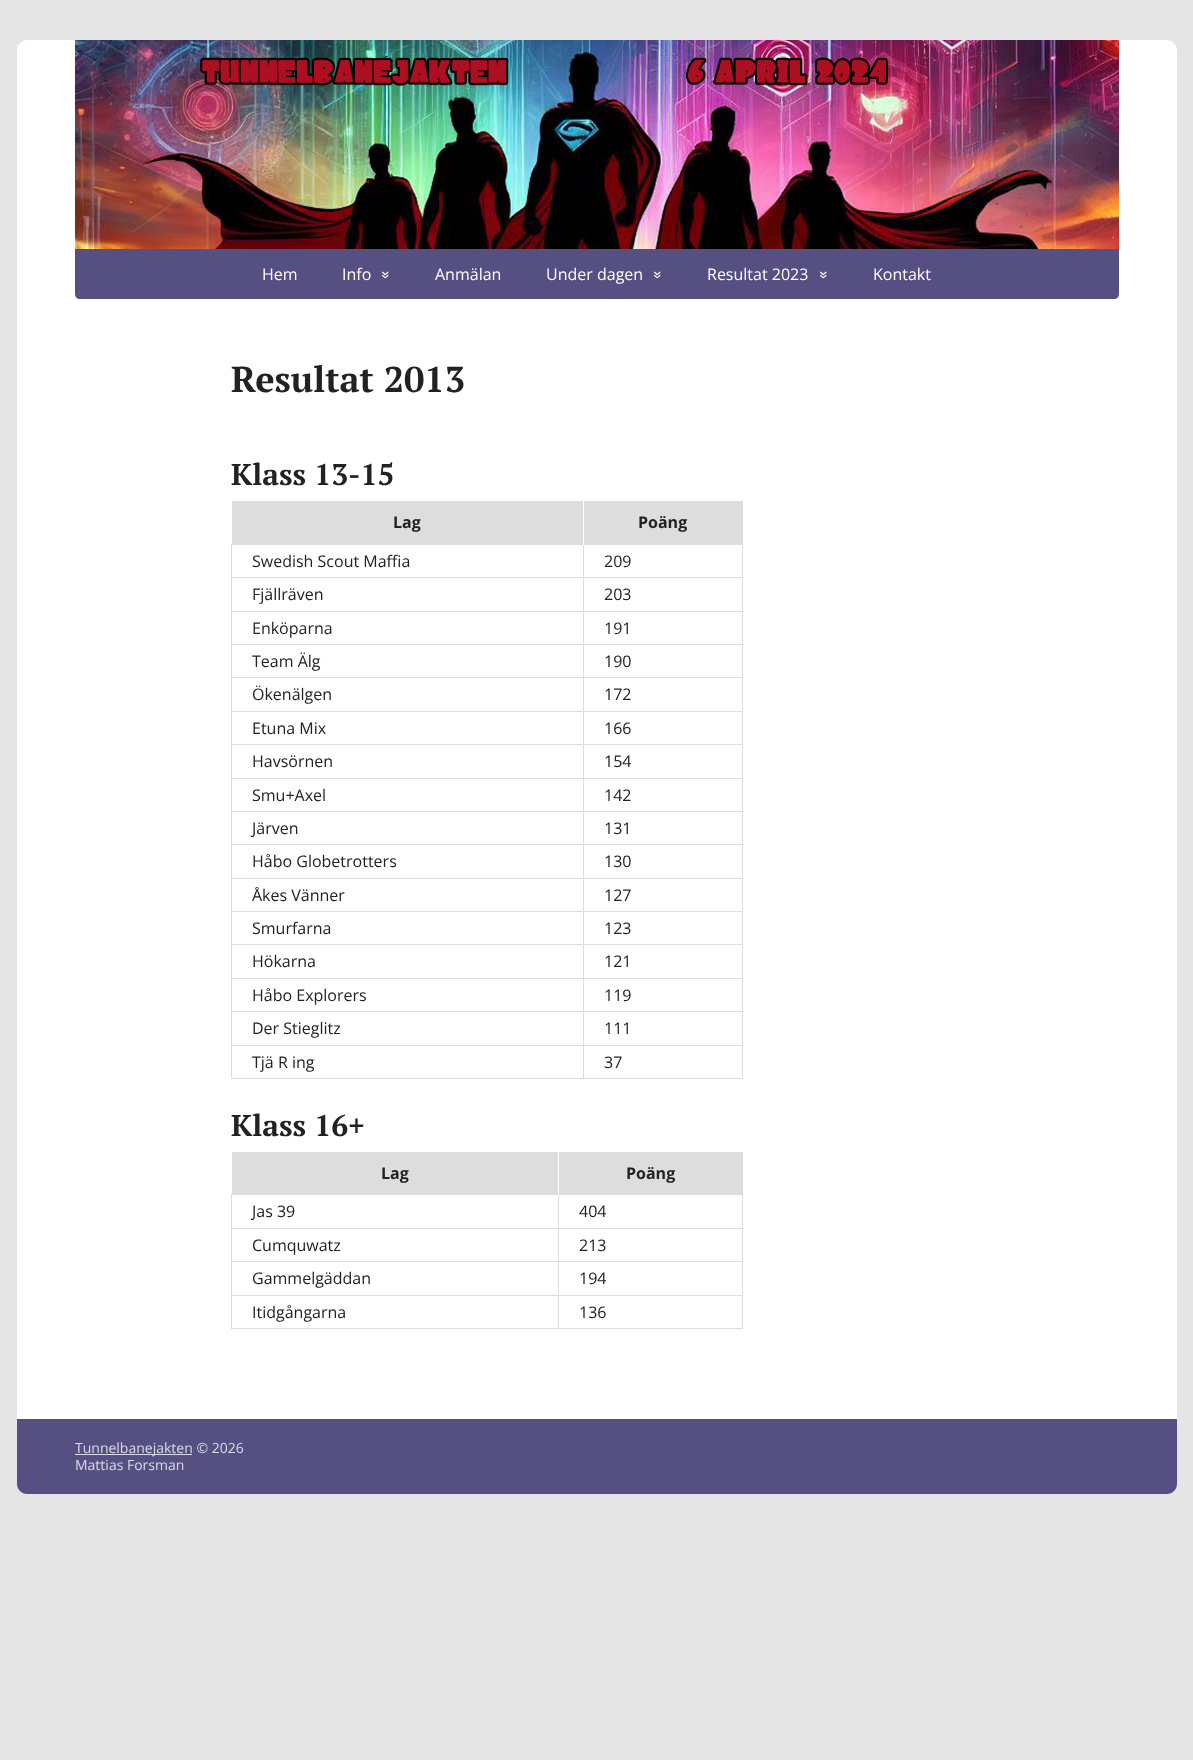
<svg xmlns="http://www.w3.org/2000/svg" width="1193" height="1760">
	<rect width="100%" height="100%" fill="#E5E5E5" />
	<rect x="17" y="40" width="1160" height="1454" rx="10" fill="#FFFFFF" />
	<image x="75" y="40" width="1044" height="209" href="assets/img1.png" />
	<path d="M75 249H1119V294C1119 297 1117 299 1114 299H80C77 299 75 297 75 294Z" fill="#554F82" />
	<g font-family="Open Sans" font-size="16" fill="#FFFFFF">
		<text x="262" y="280">Hem</text>
		<text x="342" y="280">Info</text>
		<text x="381" y="271" transform="rotate(90 381 271)">»</text>
		<text x="435" y="280">Anmälan</text>
		<text x="546" y="280">Under dagen</text>
		<text x="653" y="271" transform="rotate(90 653 271)">»</text>
		<text x="707" y="280">Resultat 2023</text>
		<text x="819" y="271" transform="rotate(90 819 271)">»</text>
		<text x="873" y="280">Kontakt</text>
	</g>
	<text x="231" y="392" font-family="PT Serif" font-size="36" font-weight="700" fill="#222222">Resultat 2013</text>
	<text x="231" y="485" font-family="PT Serif" font-size="30" font-weight="700" fill="#222222">Klass 13-15</text>
	<rect x="232" y="501" width="351" height="43" fill="#DDDDDD" />
	<rect x="583" y="544" width="160" height="1" fill="#DDDDDD" />
	<rect x="583" y="577" width="160" height="1" fill="#DDDDDD" />
	<rect x="583" y="611" width="160" height="1" fill="#DDDDDD" />
	<rect x="583" y="644" width="160" height="1" fill="#DDDDDD" />
	<rect x="583" y="677" width="160" height="1" fill="#DDDDDD" />
	<rect x="583" y="711" width="160" height="1" fill="#DDDDDD" />
	<rect x="583" y="744" width="160" height="1" fill="#DDDDDD" />
	<rect x="583" y="778" width="160" height="1" fill="#DDDDDD" />
	<rect x="583" y="811" width="160" height="1" fill="#DDDDDD" />
	<rect x="583" y="844" width="160" height="1" fill="#DDDDDD" />
	<rect x="583" y="878" width="160" height="1" fill="#DDDDDD" />
	<rect x="583" y="911" width="160" height="1" fill="#DDDDDD" />
	<rect x="583" y="944" width="160" height="1" fill="#DDDDDD" />
	<rect x="583" y="978" width="160" height="1" fill="#DDDDDD" />
	<rect x="583" y="1011" width="160" height="1" fill="#DDDDDD" />
	<rect x="583" y="1045" width="160" height="1" fill="#DDDDDD" />
	<rect x="742" y="1045" width="1" height="34" fill="#DDDDDD" />
	<rect x="583" y="1078" width="160" height="1" fill="#DDDDDD" />
	<rect x="583" y="1045" width="1" height="34" fill="#DDDDDD" />
	<rect x="231" y="1045" width="353" height="1" fill="#DDDDDD" />
	<rect x="583" y="1011" width="1" height="35" fill="#DDDDDD" />
	<rect x="231" y="1011" width="353" height="1" fill="#DDDDDD" />
	<rect x="583" y="978" width="1" height="34" fill="#DDDDDD" />
	<rect x="231" y="978" width="353" height="1" fill="#DDDDDD" />
	<rect x="583" y="944" width="1" height="35" fill="#DDDDDD" />
	<rect x="231" y="944" width="353" height="1" fill="#DDDDDD" />
	<rect x="583" y="911" width="1" height="34" fill="#DDDDDD" />
	<rect x="231" y="911" width="353" height="1" fill="#DDDDDD" />
	<rect x="583" y="878" width="1" height="34" fill="#DDDDDD" />
	<rect x="231" y="878" width="353" height="1" fill="#DDDDDD" />
	<rect x="583" y="844" width="1" height="35" fill="#DDDDDD" />
	<rect x="231" y="844" width="353" height="1" fill="#DDDDDD" />
	<rect x="583" y="811" width="1" height="34" fill="#DDDDDD" />
	<rect x="231" y="811" width="353" height="1" fill="#DDDDDD" />
	<rect x="583" y="778" width="1" height="34" fill="#DDDDDD" />
	<rect x="231" y="778" width="353" height="1" fill="#DDDDDD" />
	<rect x="583" y="744" width="1" height="35" fill="#DDDDDD" />
	<rect x="231" y="744" width="353" height="1" fill="#DDDDDD" />
	<rect x="583" y="711" width="1" height="34" fill="#DDDDDD" />
	<rect x="231" y="711" width="353" height="1" fill="#DDDDDD" />
	<rect x="583" y="677" width="1" height="35" fill="#DDDDDD" />
	<rect x="231" y="677" width="353" height="1" fill="#DDDDDD" />
	<rect x="583" y="644" width="1" height="34" fill="#DDDDDD" />
	<rect x="231" y="644" width="353" height="1" fill="#DDDDDD" />
	<rect x="583" y="611" width="1" height="34" fill="#DDDDDD" />
	<rect x="231" y="611" width="353" height="1" fill="#DDDDDD" />
	<rect x="583" y="577" width="1" height="35" fill="#DDDDDD" />
	<rect x="231" y="577" width="353" height="1" fill="#DDDDDD" />
	<rect x="583" y="544" width="1" height="34" fill="#DDDDDD" />
	<rect x="231" y="544" width="353" height="1" fill="#DDDDDD" />
	<rect x="583" y="544" width="1" height="1" fill="#FFFFFF" />
	<text x="393" y="528" font-family="Open Sans" font-size="16" font-weight="700" fill="#222222">Lag</text>
	<rect x="584" y="501" width="158" height="43" fill="#DDDDDD" />
	<text x="638" y="528" font-family="Open Sans" font-size="16" font-weight="700" fill="#222222">Poäng</text>
	<rect x="231" y="1078" width="353" height="1" fill="#DDDDDD" />
	<rect x="231" y="1045" width="1" height="34" fill="#DDDDDD" />
	<rect x="231" y="1011" width="1" height="35" fill="#DDDDDD" />
	<rect x="231" y="978" width="1" height="34" fill="#DDDDDD" />
	<rect x="231" y="944" width="1" height="35" fill="#DDDDDD" />
	<rect x="231" y="911" width="1" height="34" fill="#DDDDDD" />
	<rect x="231" y="878" width="1" height="34" fill="#DDDDDD" />
	<rect x="231" y="844" width="1" height="35" fill="#DDDDDD" />
	<rect x="231" y="811" width="1" height="34" fill="#DDDDDD" />
	<rect x="231" y="778" width="1" height="34" fill="#DDDDDD" />
	<rect x="231" y="744" width="1" height="35" fill="#DDDDDD" />
	<rect x="231" y="711" width="1" height="34" fill="#DDDDDD" />
	<rect x="231" y="677" width="1" height="35" fill="#DDDDDD" />
	<rect x="231" y="644" width="1" height="34" fill="#DDDDDD" />
	<rect x="231" y="611" width="1" height="34" fill="#DDDDDD" />
	<rect x="231" y="577" width="1" height="35" fill="#DDDDDD" />
	<rect x="231" y="544" width="1" height="34" fill="#DDDDDD" />
	<text x="252" y="567" font-family="Open Sans" font-size="16" fill="#222222">Swedish Scout Maffia</text>
	<rect x="742" y="1011" width="1" height="35" fill="#DDDDDD" />
	<rect x="742" y="978" width="1" height="34" fill="#DDDDDD" />
	<rect x="742" y="944" width="1" height="35" fill="#DDDDDD" />
	<rect x="742" y="911" width="1" height="34" fill="#DDDDDD" />
	<rect x="742" y="878" width="1" height="34" fill="#DDDDDD" />
	<rect x="742" y="844" width="1" height="35" fill="#DDDDDD" />
	<rect x="742" y="811" width="1" height="34" fill="#DDDDDD" />
	<rect x="742" y="778" width="1" height="34" fill="#DDDDDD" />
	<rect x="742" y="744" width="1" height="35" fill="#DDDDDD" />
	<rect x="742" y="711" width="1" height="34" fill="#DDDDDD" />
	<rect x="742" y="677" width="1" height="35" fill="#DDDDDD" />
	<rect x="742" y="644" width="1" height="34" fill="#DDDDDD" />
	<rect x="742" y="611" width="1" height="34" fill="#DDDDDD" />
	<rect x="742" y="577" width="1" height="35" fill="#DDDDDD" />
	<rect x="742" y="501" width="1" height="77" fill="#DDDDDD" />
	<g font-family="Open Sans" font-size="16" fill="#222222">
		<text x="604" y="567">209</text>
		<text x="252" y="600">Fjällräven</text>
		<text x="604" y="600">203</text>
		<text x="252" y="634">Enköparna</text>
		<text x="604" y="634">191</text>
		<text x="252" y="667">Team Älg</text>
		<text x="604" y="667">190</text>
		<text x="252" y="700">Ökenälgen</text>
		<text x="604" y="700">172</text>
		<text x="252" y="734">Etuna Mix</text>
		<text x="604" y="734">166</text>
		<text x="252" y="767">Havsörnen</text>
		<text x="604" y="767">154</text>
		<text x="252" y="801">Smu+Axel</text>
		<text x="604" y="801">142</text>
		<text x="252" y="834">Järven</text>
		<text x="604" y="834">131</text>
		<text x="252" y="867">Håbo Globetrotters</text>
		<text x="604" y="867">130</text>
		<text x="252" y="901">Åkes Vänner</text>
		<text x="604" y="901">127</text>
		<text x="252" y="934">Smurfarna</text>
		<text x="604" y="934">123</text>
		<text x="252" y="967">Hökarna</text>
		<text x="604" y="967">121</text>
		<text x="252" y="1001">Håbo Explorers</text>
		<text x="604" y="1001">119</text>
		<text x="252" y="1034">Der Stieglitz</text>
		<text x="604" y="1034">111</text>
		<text x="252" y="1068">Tjä R ing</text>
		<text x="604" y="1068">37</text>
	</g>
	<text x="231" y="1136" font-family="PT Serif" font-size="30" font-weight="700" fill="#222222">Klass 16+</text>
	<rect x="232" y="1152" width="326" height="42" fill="#DDDDDD" />
	<rect x="558" y="1194" width="185" height="1" fill="#DDDDDD" />
	<rect x="558" y="1228" width="185" height="1" fill="#DDDDDD" />
	<rect x="558" y="1261" width="185" height="1" fill="#DDDDDD" />
	<rect x="558" y="1295" width="185" height="1" fill="#DDDDDD" />
	<rect x="742" y="1295" width="1" height="34" fill="#DDDDDD" />
	<rect x="558" y="1328" width="185" height="1" fill="#DDDDDD" />
	<rect x="558" y="1295" width="1" height="34" fill="#DDDDDD" />
	<rect x="231" y="1295" width="328" height="1" fill="#DDDDDD" />
	<rect x="558" y="1261" width="1" height="35" fill="#DDDDDD" />
	<rect x="231" y="1261" width="328" height="1" fill="#DDDDDD" />
	<rect x="558" y="1228" width="1" height="34" fill="#DDDDDD" />
	<rect x="231" y="1228" width="328" height="1" fill="#DDDDDD" />
	<rect x="558" y="1194" width="1" height="35" fill="#DDDDDD" />
	<rect x="231" y="1194" width="328" height="1" fill="#DDDDDD" />
	<rect x="558" y="1194" width="1" height="1" fill="#FFFFFF" />
	<text x="381" y="1179" font-family="Open Sans" font-size="16" font-weight="700" fill="#222222">Lag</text>
	<rect x="559" y="1152" width="183" height="42" fill="#DDDDDD" />
	<text x="626" y="1179" font-family="Open Sans" font-size="16" font-weight="700" fill="#222222">Poäng</text>
	<rect x="231" y="1328" width="328" height="1" fill="#DDDDDD" />
	<rect x="231" y="1295" width="1" height="34" fill="#DDDDDD" />
	<rect x="231" y="1261" width="1" height="35" fill="#DDDDDD" />
	<rect x="231" y="1228" width="1" height="34" fill="#DDDDDD" />
	<rect x="231" y="1194" width="1" height="35" fill="#DDDDDD" />
	<text x="252" y="1217" font-family="Open Sans" font-size="16" fill="#222222">Jas 39</text>
	<rect x="742" y="1261" width="1" height="35" fill="#DDDDDD" />
	<rect x="742" y="1228" width="1" height="34" fill="#DDDDDD" />
	<rect x="742" y="1152" width="1" height="77" fill="#DDDDDD" />
	<g font-family="Open Sans" font-size="16" fill="#222222">
		<text x="579" y="1217">404</text>
		<text x="252" y="1251">Cumquwatz</text>
		<text x="579" y="1251">213</text>
		<text x="252" y="1284">Gammelgäddan</text>
		<text x="579" y="1284">194</text>
		<text x="252" y="1318">Itidgångarna</text>
		<text x="579" y="1318">136</text>
	</g>
	<path d="M17 1419H1177V1484C1177 1489.5 1172.5 1494 1167 1494H27C21.5 1494 17 1489.5 17 1484Z" fill="#554F82" />
	<rect x="75" y="1454" width="117" height="1" fill="#DDDCE6" />
	<g font-family="Open Sans" font-size="14" fill="#DDDCE6">
		<text x="75" y="1453">Tunnelbanejakten © 2026</text>
		<text x="75" y="1470">Mattias Forsman</text>
	</g>
</svg>
